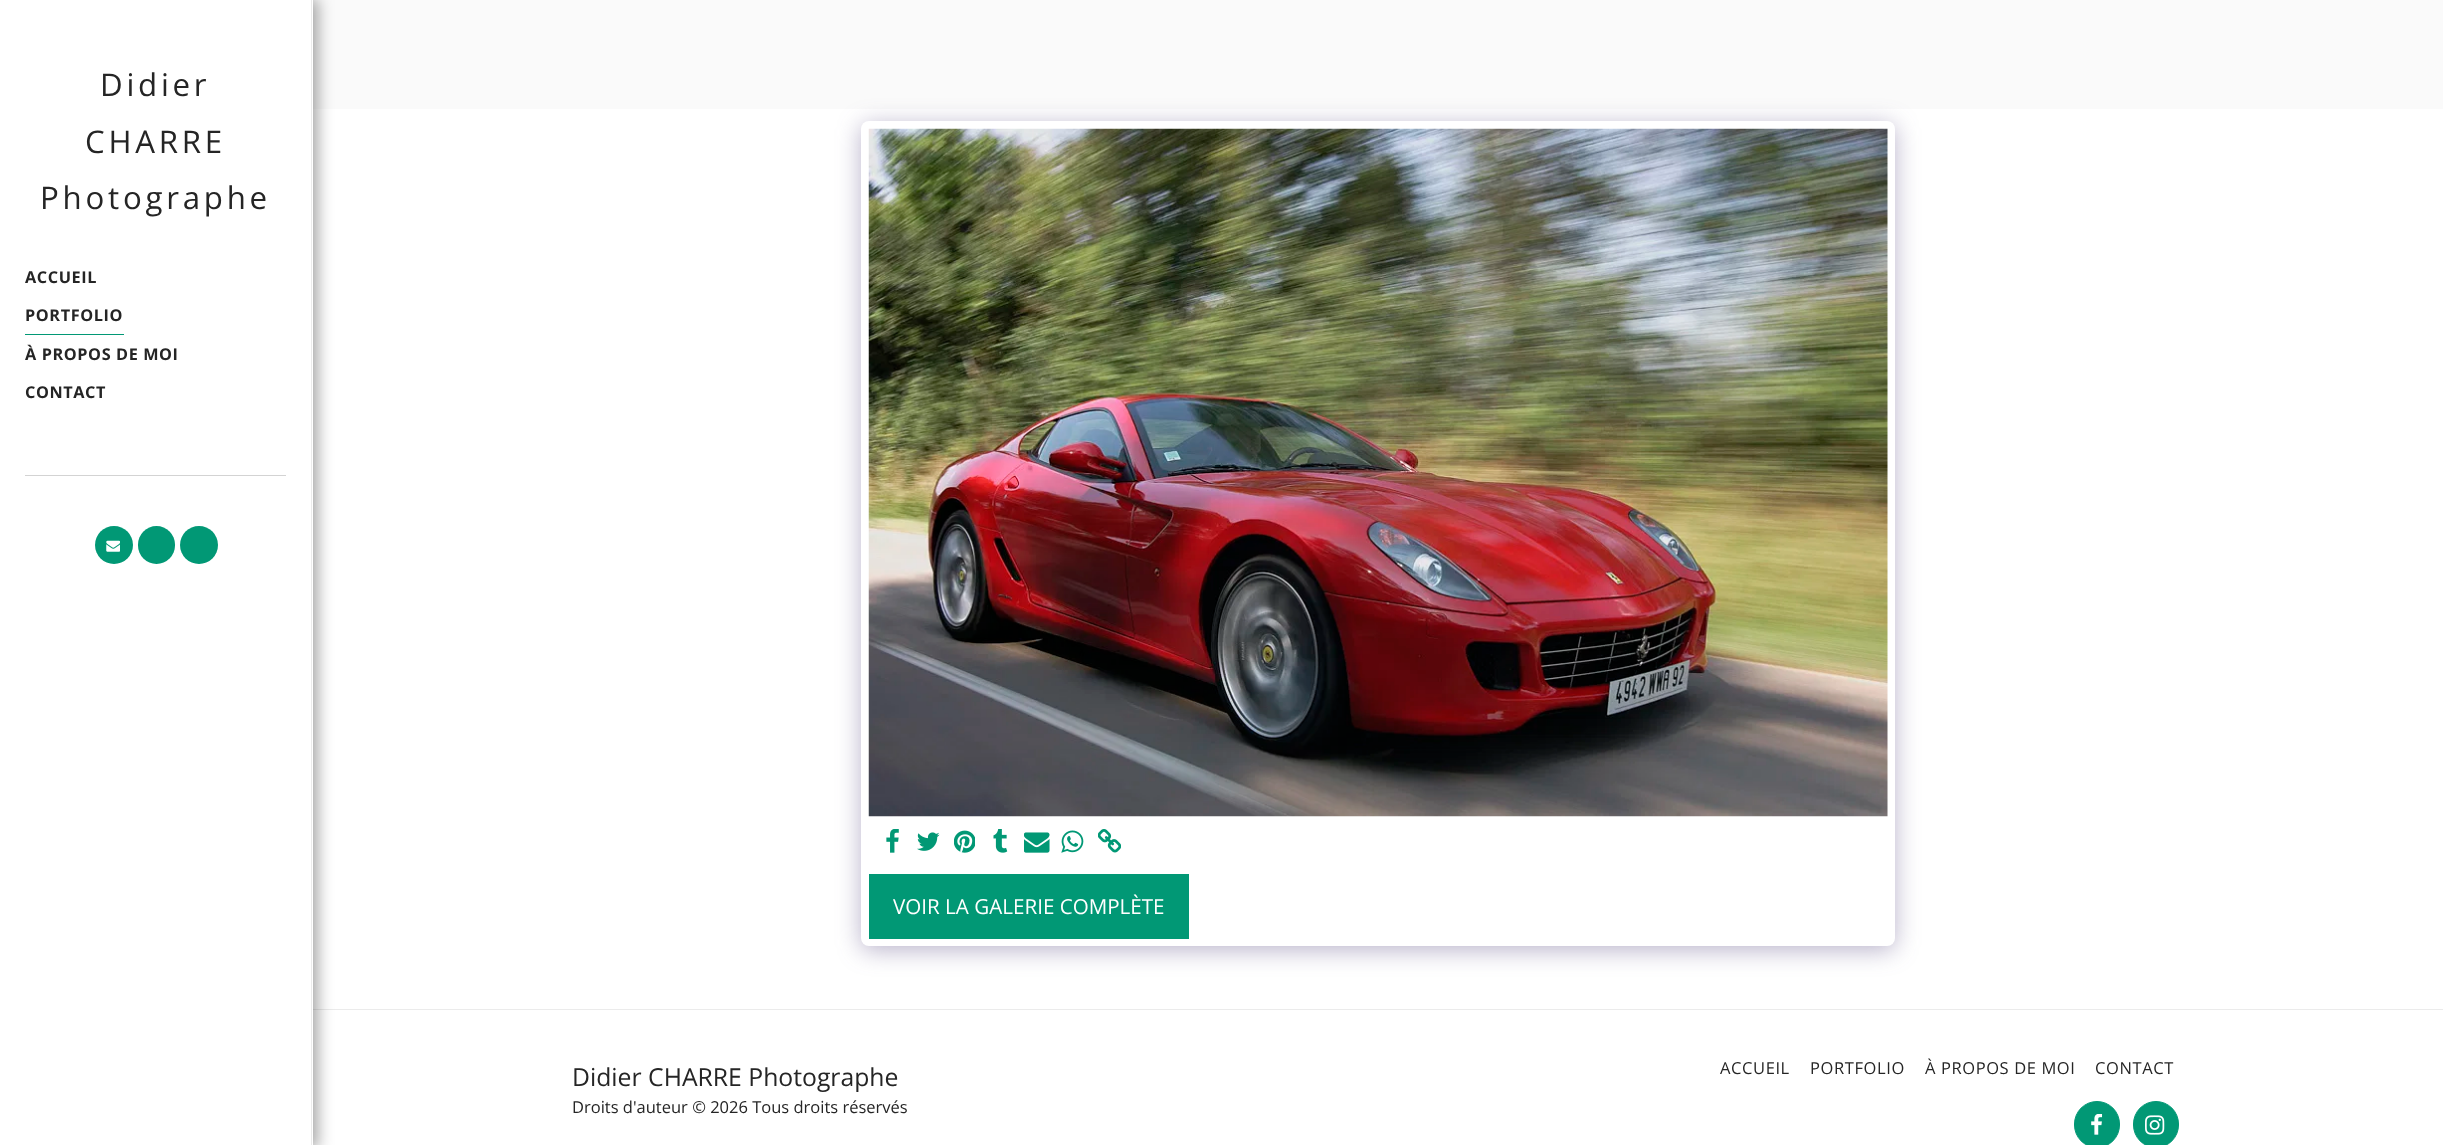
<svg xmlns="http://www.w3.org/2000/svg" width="2443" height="1145">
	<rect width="100%" height="100%" fill="#FFFFFF" />
	<rect x="313" y="0" width="2130" height="109" fill="#FAFAFA" />
	<rect x="313" y="1009" width="2130" height="1" fill="#EBEBEB" />
	<rect x="0" y="-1" width="318" height="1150" fill="#000000" fill-opacity="0.35" filter="blur(7.5px)" />
	<rect x="0" y="0" width="313" height="1145" fill="#FFFFFF" />
	<rect x="311" y="0" width="1" height="1145" fill="#EBEBEB" />
	<g font-family="Open Sans" font-size="31.25" letter-spacing="3.75" fill="#252525">
		<text x="100" y="96">Didier</text>
		<text x="85" y="153">CHARRE</text>
		<text x="40" y="209">Photographe</text>
	</g>
	<text x="25" y="283" font-family="Open Sans" font-size="16.25" font-weight="700" letter-spacing="0.6" fill="#252525">ACCUEIL</text>
	<rect x="25" y="334" width="99" height="1" fill="#019875" />
	<g font-family="Open Sans" font-size="16.25" font-weight="700" letter-spacing="0.6" fill="#252525">
		<text x="25" y="321">PORTFOLIO</text>
		<text x="25" y="360">À PROPOS DE MOI</text>
		<text x="25" y="398">CONTACT</text>
	</g>
	<rect x="25" y="475" width="261" height="1" fill="#D3D3D3" />
	<circle cx="114" cy="545" r="19" fill="#019875" />
	<image x="106" y="540" width="14" height="12" href="assets/img1.png" />
	<rect x="138" y="526" width="37" height="38" rx="18.5" fill="#019875" />
	<circle cx="199" cy="545" r="19" fill="#019875" />
	<rect x="861" y="125" width="1034" height="825" rx="8" fill="#4D3F7A" fill-opacity="0.4" filter="blur(12.5px)" />
	<rect x="861" y="121" width="1034" height="825" rx="8" fill="#FFFFFF" />
	<image x="868" y="128" width="1020" height="689" href="assets/img2.png" />
	<image x="886" y="829" width="13" height="24" href="assets/img3.png" />
	<image x="917" y="832" width="23" height="19" href="assets/img4.png" />
	<image x="954" y="830" width="21" height="23" href="assets/img5.png" />
	<image x="993" y="829" width="15" height="24" href="assets/img6.png" />
	<image x="1024" y="832" width="26" height="21" href="assets/img7.png" />
	<image x="1061" y="830" width="23" height="23" href="assets/img8.png" />
	<image x="1098" y="829" width="23" height="24" href="assets/img9.png" />
	<rect x="869" y="874" width="320" height="65" fill="#019875" />
	<text x="893" y="914" font-family="Open Sans" font-size="20.6" fill="#FFFFFF">VOIR LA GALERIE COMPLÈTE</text>
	<text x="572" y="1086" font-family="Open Sans" font-size="24.75" fill="#252525">Didier CHARRE Photographe</text>
	<text x="572" y="1113" font-family="Open Sans" font-size="16.5" fill="#252525">Droits d'auteur © 2026 Tous droits réservés</text>
	<g font-family="Open Sans" font-size="16.5" letter-spacing="0.6" fill="#252525">
		<text x="1720" y="1074">ACCUEIL</text>
		<text x="1810" y="1074">PORTFOLIO</text>
		<text x="1925" y="1074">À PROPOS DE MOI</text>
		<text x="2095" y="1074">CONTACT</text>
	</g>
	<rect x="2074.5" y="1101.5" width="45" height="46" rx="22.5" fill="#019875" stroke="#019875" />
	<image x="2091" y="1114" width="12" height="21" href="assets/img10.png" />
	<rect x="2133.5" y="1101.5" width="45" height="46" rx="22.5" fill="#019875" stroke="#019875" />
	<image x="2145" y="1115" width="20" height="20" href="assets/img11.png" />
</svg>
